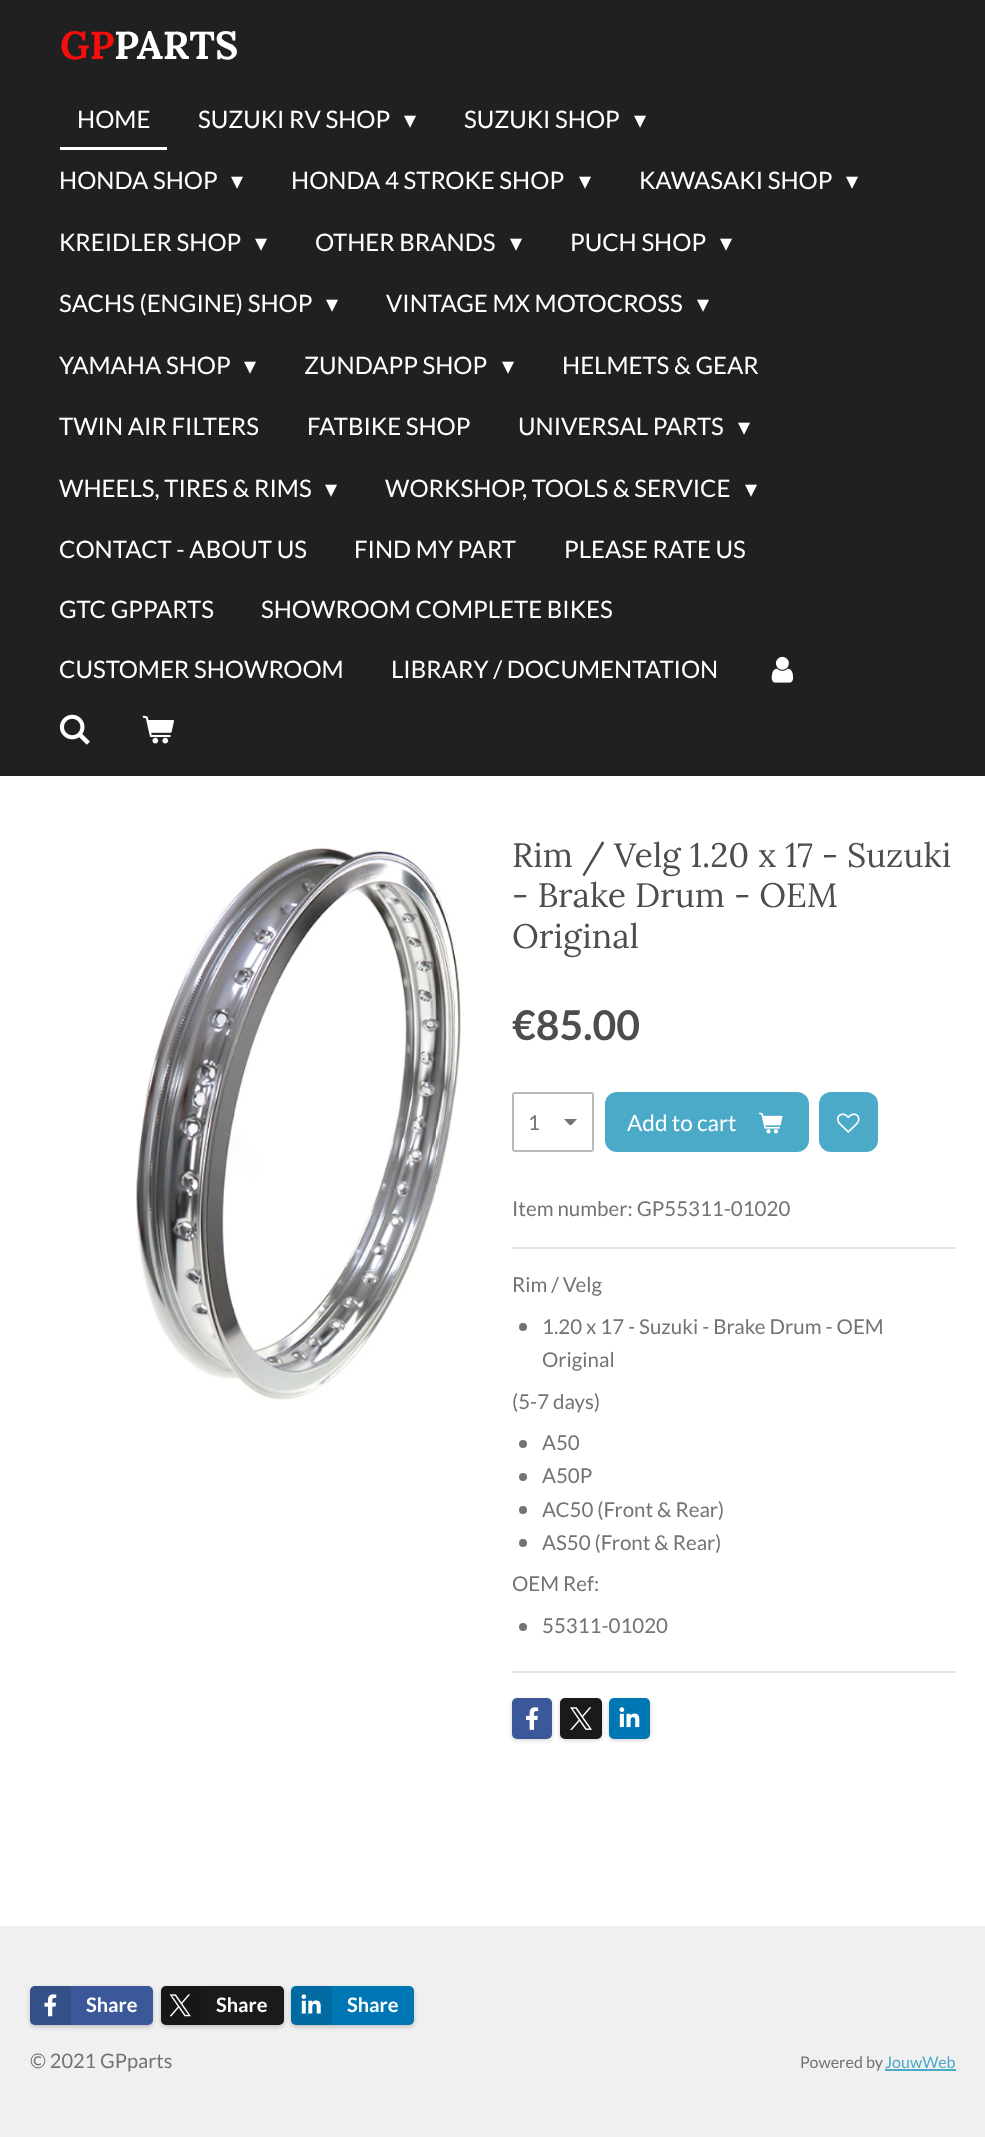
<svg xmlns="http://www.w3.org/2000/svg" width="985" height="2137">
	<defs>
		<clipPath id="clip1"><rect x="564" y="1119" width="14" height="6" /></clipPath>
	</defs>
	<rect width="100%" height="100%" fill="#FFFFFF" />
	<rect x="0" y="0" width="985" height="776" fill="#202020" />
	<text x="60" y="59" font-family="Lora" font-size="39" font-weight="700" fill="#F80D0D">GP</text>
	<text x="114" y="59" font-family="Lora" font-size="39" font-weight="700" fill="#FFFFFF">PARTS</text>
	<rect x="60" y="147" width="107" height="3" fill="#FFFFFF" />
	<g font-family="Lato" font-size="24" fill="#FFFFFF">
		<text x="77" y="128">HOME</text>
		<text x="198" y="128">SUZUKI RV SHOP</text>
	</g>
	<text x="404" y="128" font-family="DejaVu Sans" font-size="24" fill="#FFFFFF">▾</text>
	<text x="464" y="128" font-family="Lato" font-size="24" fill="#FFFFFF">SUZUKI SHOP</text>
	<text x="634" y="128" font-family="DejaVu Sans" font-size="24" fill="#FFFFFF">▾</text>
	<text x="59" y="189" font-family="Lato" font-size="24" fill="#FFFFFF">HONDA SHOP</text>
	<text x="231" y="189" font-family="DejaVu Sans" font-size="24" fill="#FFFFFF">▾</text>
	<text x="291" y="189" font-family="Lato" font-size="24" fill="#FFFFFF">HONDA 4 STROKE SHOP</text>
	<text x="579" y="189" font-family="DejaVu Sans" font-size="24" fill="#FFFFFF">▾</text>
	<text x="639" y="189" font-family="Lato" font-size="24" fill="#FFFFFF">KAWASAKI SHOP</text>
	<text x="846" y="189" font-family="DejaVu Sans" font-size="24" fill="#FFFFFF">▾</text>
	<text x="59" y="251" font-family="Lato" font-size="24" fill="#FFFFFF">KREIDLER SHOP</text>
	<text x="255" y="251" font-family="DejaVu Sans" font-size="24" fill="#FFFFFF">▾</text>
	<text x="315" y="251" font-family="Lato" font-size="24" fill="#FFFFFF">OTHER BRANDS</text>
	<text x="510" y="251" font-family="DejaVu Sans" font-size="24" fill="#FFFFFF">▾</text>
	<text x="570" y="251" font-family="Lato" font-size="24" fill="#FFFFFF">PUCH SHOP</text>
	<text x="720" y="251" font-family="DejaVu Sans" font-size="24" fill="#FFFFFF">▾</text>
	<text x="59" y="312" font-family="Lato" font-size="24" fill="#FFFFFF">SACHS (ENGINE) SHOP</text>
	<text x="326" y="312" font-family="DejaVu Sans" font-size="24" fill="#FFFFFF">▾</text>
	<text x="386" y="312" font-family="Lato" font-size="24" fill="#FFFFFF">VINTAGE MX MOTOCROSS</text>
	<text x="697" y="312" font-family="DejaVu Sans" font-size="24" fill="#FFFFFF">▾</text>
	<text x="59" y="374" font-family="Lato" font-size="24" fill="#FFFFFF">YAMAHA SHOP</text>
	<text x="244" y="374" font-family="DejaVu Sans" font-size="24" fill="#FFFFFF">▾</text>
	<text x="304" y="374" font-family="Lato" font-size="24" fill="#FFFFFF">ZUNDAPP SHOP</text>
	<text x="502" y="374" font-family="DejaVu Sans" font-size="24" fill="#FFFFFF">▾</text>
	<g font-family="Lato" font-size="24" fill="#FFFFFF">
		<text x="562" y="374">HELMETS &amp; GEAR</text>
		<text x="59" y="435">TWIN AIR FILTERS</text>
		<text x="307" y="435">FATBIKE SHOP</text>
		<text x="518" y="435">UNIVERSAL PARTS</text>
	</g>
	<text x="738" y="435" font-family="DejaVu Sans" font-size="24" fill="#FFFFFF">▾</text>
	<text x="59" y="497" font-family="Lato" font-size="24" fill="#FFFFFF">WHEELS, TIRES &amp; RIMS</text>
	<text x="325" y="497" font-family="DejaVu Sans" font-size="24" fill="#FFFFFF">▾</text>
	<text x="385" y="497" font-family="Lato" font-size="24" fill="#FFFFFF">WORKSHOP, TOOLS &amp; SERVICE</text>
	<text x="745" y="497" font-family="DejaVu Sans" font-size="24" fill="#FFFFFF">▾</text>
	<g font-family="Lato" font-size="24" fill="#FFFFFF">
		<text x="59" y="558">CONTACT - ABOUT US</text>
		<text x="354" y="558">FIND MY PART</text>
		<text x="564" y="558">PLEASE RATE US</text>
		<text x="59" y="618">GTC GPPARTS</text>
		<text x="261" y="618">SHOWROOM COMPLETE BIKES</text>
		<text x="59" y="678">CUSTOMER SHOWROOM</text>
		<text x="391" y="678">LIBRARY / DOCUMENTATION</text>
	</g>
	<image x="771" y="656" width="23" height="27" href="assets/img1.png" />
	<image x="59" y="714" width="31" height="31" href="assets/img2.png" />
	<image x="142" y="715" width="32" height="29" href="assets/img3.png" />
	<image x="136" y="847" width="325" height="553" href="assets/img4.png" />
	<g font-family="Lora" font-size="33.75" fill="#4D4D4D">
		<text x="512" y="867">Rim / Velg 1.20 x 17 - Suzuki</text>
		<text x="512" y="907">- Brake Drum - OEM</text>
		<text x="512" y="948">Original</text>
	</g>
	<text x="512" y="1040" font-family="Lato" font-size="41" font-weight="700" fill="#4D4D4D">€85.00</text>
	<g clip-path="url(#clip1)">
		<path d="M570.5 1126L564 1119H577Z" fill="#737373" />
	</g>
	<rect x="513" y="1093" width="80" height="58" rx="2" fill="none" stroke="#B9B9B9" stroke-width="2" />
	<text x="528" y="1130" font-family="Lato" font-size="20.5" fill="#737373">1</text>
	<rect x="605" y="1092" width="204" height="60" rx="12" fill="#4CAAC9" />
	<text x="627" y="1131" font-family="Lato" font-size="22.5" fill="#FFFFFF">Add to cart</text>
	<image x="759" y="1112" width="24" height="22" href="assets/img5.png" />
	<rect x="819" y="1092" width="59" height="60" rx="12" fill="#4CAAC9" />
	<image x="837" y="1113" width="23" height="20" href="assets/img6.png" />
	<text x="512" y="1216" font-family="Lato" font-size="20.5" fill="#737373">Item number: GP55311-01020</text>
	<rect x="512" y="1247" width="444" height="2" fill="#E3E3E3" />
	<text x="512" y="1292" font-family="Lato" font-size="20.5" fill="#737373">Rim / Velg</text>
	<circle cx="523" cy="1327" r="4" fill="#737373" />
	<g font-family="Lato" font-size="20.5" fill="#737373">
		<text x="542" y="1334">1.20 x 17 - Suzuki - Brake Drum - OEM</text>
		<text x="542" y="1367">Original</text>
		<text x="512" y="1409">(5-7 days)</text>
	</g>
	<circle cx="523" cy="1444" r="4" fill="#737373" />
	<text x="542" y="1450" font-family="Lato" font-size="20.5" fill="#737373">A50</text>
	<circle cx="523" cy="1477" r="4" fill="#737373" />
	<text x="542" y="1483" font-family="Lato" font-size="20.5" fill="#737373">A50P</text>
	<circle cx="523" cy="1510" r="4" fill="#737373" />
	<text x="542" y="1517" font-family="Lato" font-size="20.5" fill="#737373">AC50 (Front &amp; Rear)</text>
	<circle cx="523" cy="1543" r="4" fill="#737373" />
	<g font-family="Lato" font-size="20.5" fill="#737373">
		<text x="542" y="1550">AS50 (Front &amp; Rear)</text>
		<text x="512" y="1591">OEM Ref:</text>
	</g>
	<circle cx="523" cy="1627" r="4" fill="#737373" />
	<text x="542" y="1633" font-family="Lato" font-size="20.5" fill="#737373">55311-01020</text>
	<rect x="512" y="1671" width="444" height="2" fill="#E3E3E3" />
	<rect x="512" y="1700" width="40" height="40" rx="5" fill="#000000" fill-opacity="0.2" filter="blur(2px)" />
	<rect x="512" y="1698" width="40" height="41" rx="5" fill="#3B5998" />
	<image x="526" y="1707" width="13" height="23" href="assets/img7.png" />
	<rect x="560" y="1700" width="42" height="40" rx="5" fill="#000000" fill-opacity="0.2" filter="blur(2px)" />
	<rect x="560" y="1698" width="42" height="41" rx="5" fill="#1A1A1A" />
	<image x="570" y="1707" width="22" height="23" href="assets/img8.png" />
	<rect x="609" y="1700" width="41" height="40" rx="5" fill="#000000" fill-opacity="0.2" filter="blur(2px)" />
	<rect x="609" y="1698" width="41" height="41" rx="5" fill="#0077B5" />
	<image x="619" y="1707" width="21" height="21" href="assets/img9.png" />
	<rect x="0" y="1926" width="985" height="211" fill="#F0F0F0" />
	<rect x="30" y="1988" width="123" height="39" rx="5" fill="#000000" fill-opacity="0.2" filter="blur(2px)" />
	<rect x="30" y="1986" width="123" height="39" rx="5" fill="#3B5998" />
	<path d="M35 1986H71V2025H35C32 2025 30 2023 30 2020V1991C30 1988 32 1986 35 1986Z" fill="#000000" fill-opacity="0.1" />
	<image x="44" y="1994" width="13" height="23" href="assets/img10.png" />
	<text x="86" y="2012" font-family="Lato" font-size="20" font-weight="700" fill="#FFFFFF">Share</text>
	<rect x="161" y="1988" width="123" height="39" rx="5" fill="#000000" fill-opacity="0.2" filter="blur(2px)" />
	<rect x="161" y="1986" width="123" height="39" rx="5" fill="#1A1A1A" />
	<path d="M166 1986H201V2025H166C163 2025 161 2023 161 2020V1991C161 1988 163 1986 166 1986Z" fill="#000000" fill-opacity="0.1" />
	<image x="169" y="1994" width="22" height="23" href="assets/img11.png" />
	<text x="216" y="2012" font-family="Lato" font-size="20" font-weight="700" fill="#FFFFFF">Share</text>
	<rect x="291" y="1988" width="123" height="39" rx="5" fill="#000000" fill-opacity="0.2" filter="blur(2px)" />
	<rect x="291" y="1986" width="123" height="39" rx="5" fill="#0077B5" />
	<path d="M296 1986H332V2025H296C293 2025 291 2023 291 2020V1991C291 1988 293 1986 296 1986Z" fill="#000000" fill-opacity="0.1" />
	<image x="301" y="1994" width="20" height="20" href="assets/img12.png" />
	<text x="347" y="2012" font-family="Lato" font-size="20" font-weight="700" fill="#FFFFFF">Share</text>
	<text x="30" y="2068" font-family="Lato" font-size="20" fill="#737373">© 2021 GPparts</text>
	<text x="800" y="2068" font-family="Lato" font-size="16" fill="#737373">Powered by</text>
	<rect x="885" y="2069" width="71" height="2" fill="#4CAAC9" />
	<text x="885" y="2068" font-family="Lato" font-size="16" fill="#4CAAC9">JouwWeb</text>
</svg>
